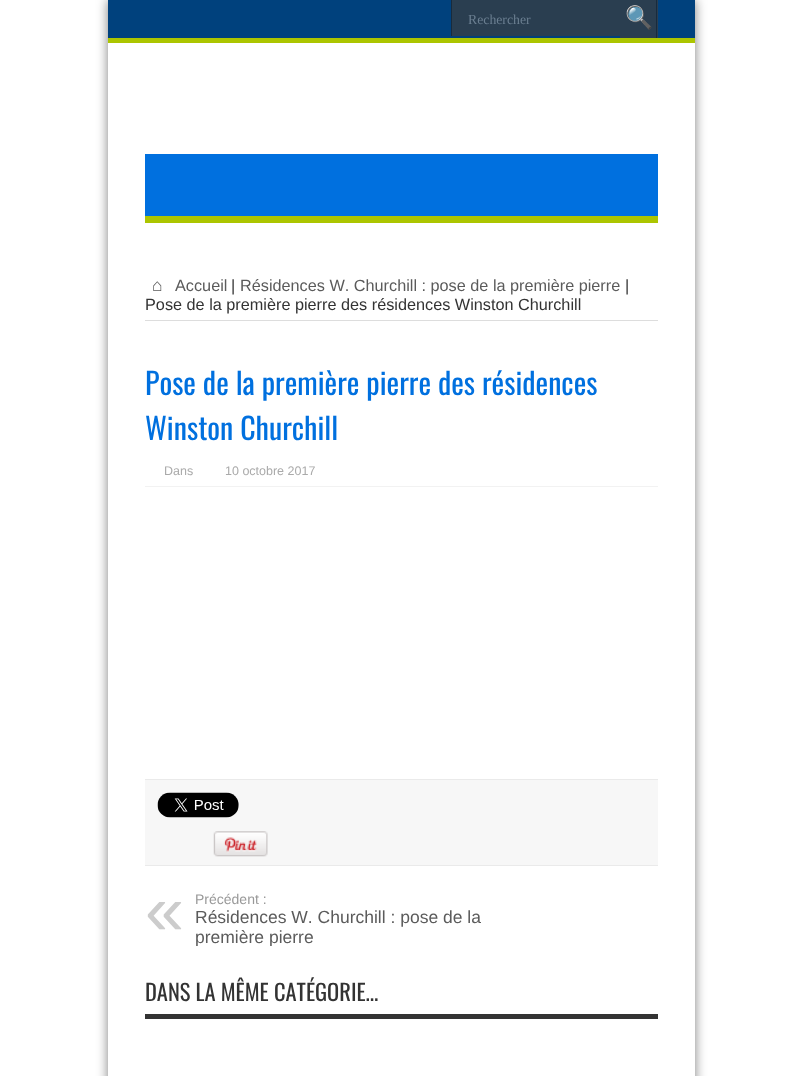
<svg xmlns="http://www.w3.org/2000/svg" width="802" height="1076">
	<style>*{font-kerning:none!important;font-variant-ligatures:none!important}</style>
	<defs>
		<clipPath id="clip1"><path d="M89 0H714V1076H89ZM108 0H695V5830H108Z" clip-rule="evenodd" /></clipPath>
		<clipPath id="clip2"><rect x="451" y="0" width="207" height="38" /></clipPath>
		<clipPath id="clip3"><rect x="145" y="891" width="513" height="55" /></clipPath>
	</defs>
	<rect width="100%" height="100%" fill="#FFFFFF" />
	<g clip-path="url(#clip1)">
		<rect x="108" y="0" width="587" height="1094" fill="#000000" fill-opacity="0.5" filter="blur(6px)" />
	</g>
	<rect x="108" y="0" width="587" height="38" fill="#00417D" />
	<rect x="108" y="38" width="587" height="5" fill="#ACC500" />
	<g clip-path="url(#clip2)">
		<path d="M451 3V39H620V36H451Z" fill="#00407A" />
	</g>
	<rect x="452" y="0" width="168" height="36" fill="#2A3E50" />
	<rect x="451" y="0" width="1" height="36" fill="#182B3D" />
	<text x="468" y="24" font-family="Liberation Serif" font-size="13.75" fill="#6B7F91">Rechercher</text>
	<rect x="620" y="0" width="38" height="38" fill="#2A3E50" />
	<rect x="656" y="0" width="1" height="38" fill="#182B3D" />
	<text x="625" y="25" font-family="Noto Color Emoji" font-size="22.5" fill="#B3C6D8">🔍</text>
	<rect x="145" y="154" width="513" height="62" fill="#0070DF" />
	<rect x="145" y="216" width="513" height="7" fill="#ACC500" />
	<rect x="145" y="320" width="513" height="1" fill="#DDDDDD" />
	<text x="152" y="291" font-family="Liberation Serif" font-size="17.5" fill="#5B5B5B">⌂</text>
	<text x="175" y="291" font-family="Liberation Sans" font-size="16.25" fill="#5B5B5B">Accueil</text>
	<text x="231" y="291" font-family="Liberation Sans" font-size="16.25" fill="#333333">|</text>
	<text x="240" y="291" font-family="Liberation Sans" font-size="16.25" fill="#5B5B5B">Résidences W. Churchill : pose de la première pierre</text>
	<g font-family="Liberation Sans" font-size="16.25" fill="#333333">
		<text x="625" y="291">|</text>
		<text x="145" y="310">Pose de la première pierre des résidences Winston Churchill</text>
	</g>
	<g font-family="Oswald" font-size="30" fill="#0070DF">
		<text x="145" y="395">Pose de la première pierre des résidences</text>
		<text x="145" y="440">Winston Churchill</text>
	</g>
	<rect x="145" y="486" width="513" height="1" fill="#F2F2F2" />
	<g font-family="Liberation Sans" font-size="12.5" fill="#AAAAAA">
		<text x="164" y="475">Dans</text>
		<text x="225" y="475">10 octobre 2017</text>
	</g>
	<rect x="145" y="780" width="513" height="85" fill="#F7F7F7" />
	<rect x="145" y="779" width="513" height="1" fill="#EAEAEA" />
	<rect x="145" y="865" width="513" height="1" fill="#EAEAEA" />
	<image x="157" y="792" width="82" height="26" href="assets/img1.png" />
	<image x="213" y="831" width="55" height="26" href="assets/img2.png" />
	<text x="195" y="904" font-family="Liberation Sans" font-size="14" fill="#999999">Précédent :</text>
	<text x="145" y="934" font-family="Liberation Sans" font-size="70" fill="#CCCCCC">«</text>
	<text x="195" y="923" font-family="Liberation Sans" font-size="17.5" fill="#5B5B5B">Résidences W. Churchill : pose de la</text>
	<g clip-path="url(#clip3)">
		<text x="195" y="943" font-family="Liberation Sans" font-size="17.5" fill="#5B5B5B">première pierre</text>
	</g>
	<rect x="145" y="1014" width="513" height="5" fill="#333333" />
	<text x="145" y="1001" font-family="Oswald" font-size="22.5" fill="#333333">DANS LA MÊME CATÉGORIE...</text>
</svg>
